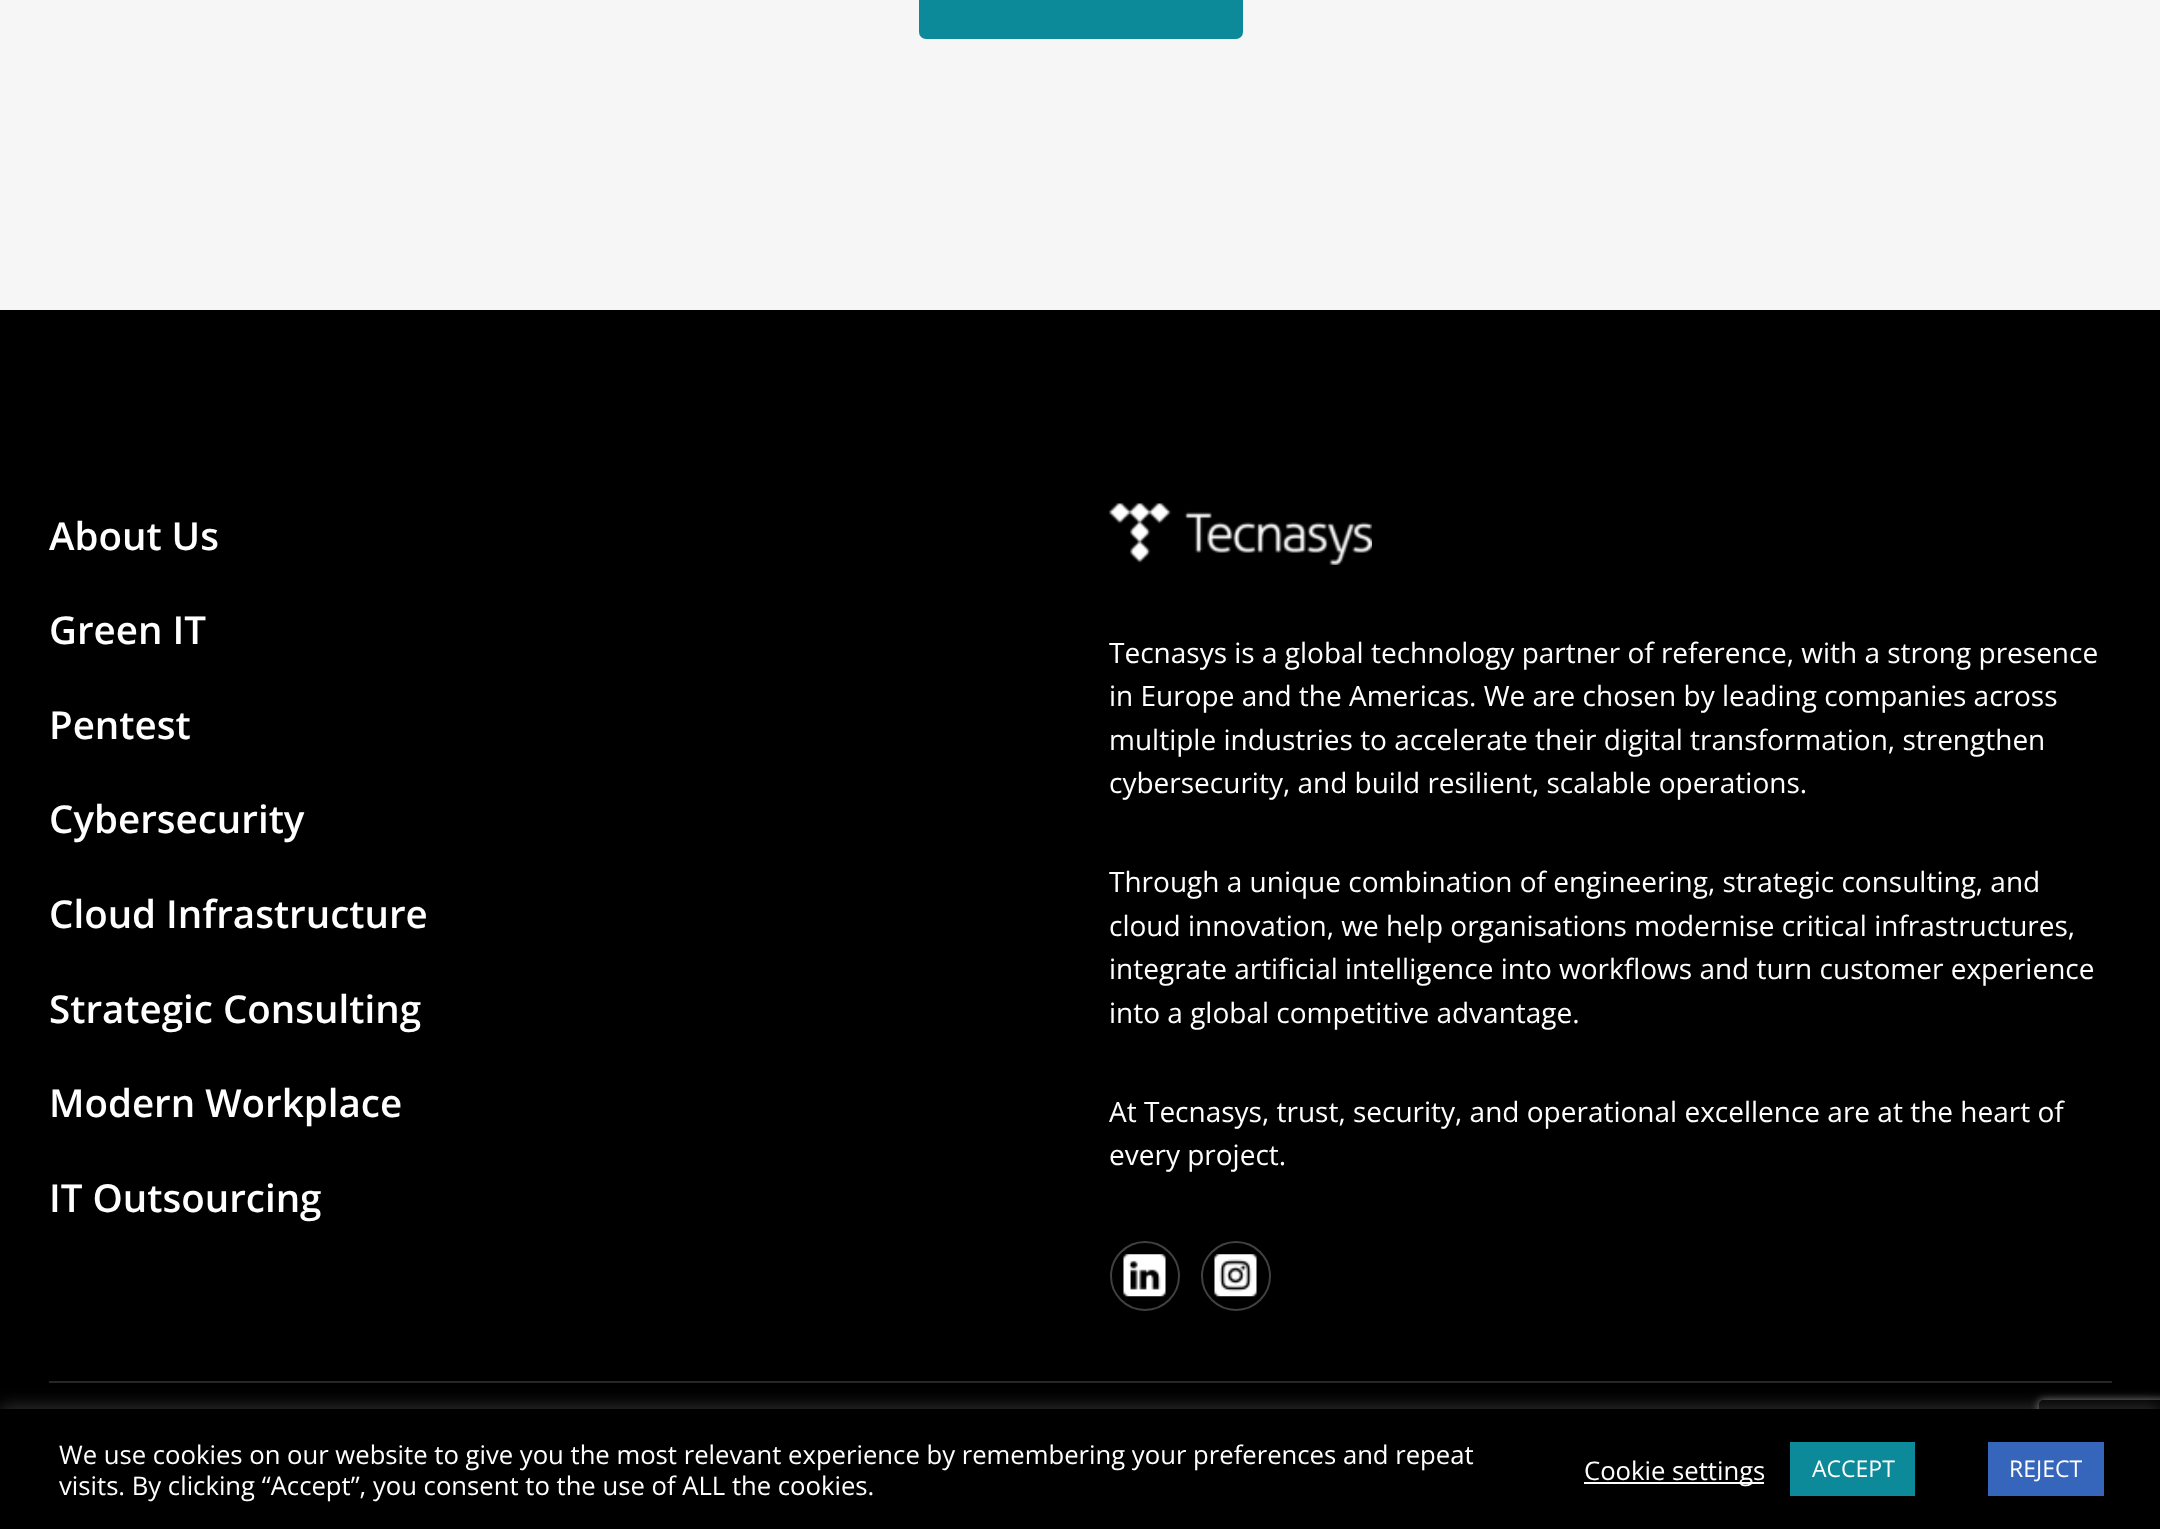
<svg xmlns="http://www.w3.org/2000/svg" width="2160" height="1529">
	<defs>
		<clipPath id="clip1"><path d="M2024 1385H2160V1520H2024ZM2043 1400H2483C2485 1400 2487 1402 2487 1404V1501C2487 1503 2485 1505 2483 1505H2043C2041 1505 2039 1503 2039 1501V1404C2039 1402 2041 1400 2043 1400Z" clip-rule="evenodd" /></clipPath>
	</defs>
	<rect width="100%" height="100%" fill="#F6F6F6" />
	<rect x="919" y="-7" width="324" height="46" rx="7" fill="#0D8A99" />
	<rect x="0" y="310" width="2160" height="1099" fill="#000000" />
	<g font-family="Open Sans" font-size="38.5" font-weight="600" fill="#FFFFFF">
		<text x="49" y="550">About Us</text>
		<text x="49" y="644">Green IT</text>
		<text x="49" y="739">Pentest</text>
		<text x="49" y="833">Cybersecurity</text>
		<text x="49" y="928">Cloud Infrastructure</text>
		<text x="49" y="1023">Strategic Consulting</text>
		<text x="49" y="1117">Modern Workplace</text>
		<text x="49" y="1212">IT Outsourcing</text>
	</g>
	<image x="1109" y="503" width="263" height="62" href="assets/img1.png" />
	<g font-family="Open Sans" font-size="28" fill="#FFFFFF">
		<text x="1109" y="663">Tecnasys is a global technology partner of reference, with a strong presence</text>
		<text x="1109" y="706">in Europe and the Americas. We are chosen by leading companies across</text>
		<text x="1109" y="750">multiple industries to accelerate their digital transformation, strengthen</text>
		<text x="1109" y="793">cybersecurity, and build resilient, scalable operations.</text>
		<text x="1109" y="892">Through a unique combination of engineering, strategic consulting, and</text>
		<text x="1109" y="936">cloud innovation, we help organisations modernise critical infrastructures,</text>
		<text x="1109" y="979">integrate artificial intelligence into workflows and turn customer experience</text>
		<text x="1109" y="1023">into a global competitive advantage.</text>
		<text x="1109" y="1122">At Tecnasys, trust, security, and operational excellence are at the heart of</text>
		<text x="1109" y="1165">every project.</text>
	</g>
	<image x="1123" y="1254" width="43" height="43" href="assets/img2.png" />
	<circle cx="1145" cy="1276" r="34" fill="none" stroke="#404040" stroke-width="2" />
	<image x="1214" y="1254" width="43" height="43" href="assets/img3.png" />
	<circle cx="1236" cy="1276" r="34" fill="none" stroke="#404040" stroke-width="2" />
	<rect x="49" y="1381" width="2063" height="2" fill="#262626" />
	<rect x="0" y="1407" width="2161" height="121" fill="#ACABAB" fill-opacity="0.3" filter="blur(9px)" />
	<g clip-path="url(#clip1)">
		<rect x="2039" y="1400" width="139" height="105" rx="4" fill="#808080" filter="blur(4.5px)" />
	</g>
	<rect x="0" y="1409" width="2160" height="120" fill="#000000" />
	<g font-family="Open Sans" font-size="25.67" fill="#FFFFFF">
		<text x="59" y="1464">We use cookies on our website to give you the most relevant experience by remembering your preferences and repeat</text>
		<text x="59" y="1495">visits. By clicking “Accept”, you consent to the use of ALL the cookies.</text>
	</g>
	<rect x="1584" y="1482" width="180" height="2" fill="#FFFFFF" />
	<text x="1584" y="1480" font-family="Open Sans" font-size="25.67" fill="#FFFFFF">Cookie settings</text>
	<rect x="1790" y="1442" width="125" height="54" fill="#0D8A99" />
	<text x="1812" y="1477" font-family="Open Sans" font-size="23" fill="#FFFFFF">ACCEPT</text>
	<rect x="1988" y="1442" width="116" height="54" fill="#3566BB" />
	<text x="2009" y="1477" font-family="Open Sans" font-size="23" fill="#FFFFFF">REJECT</text>
</svg>
